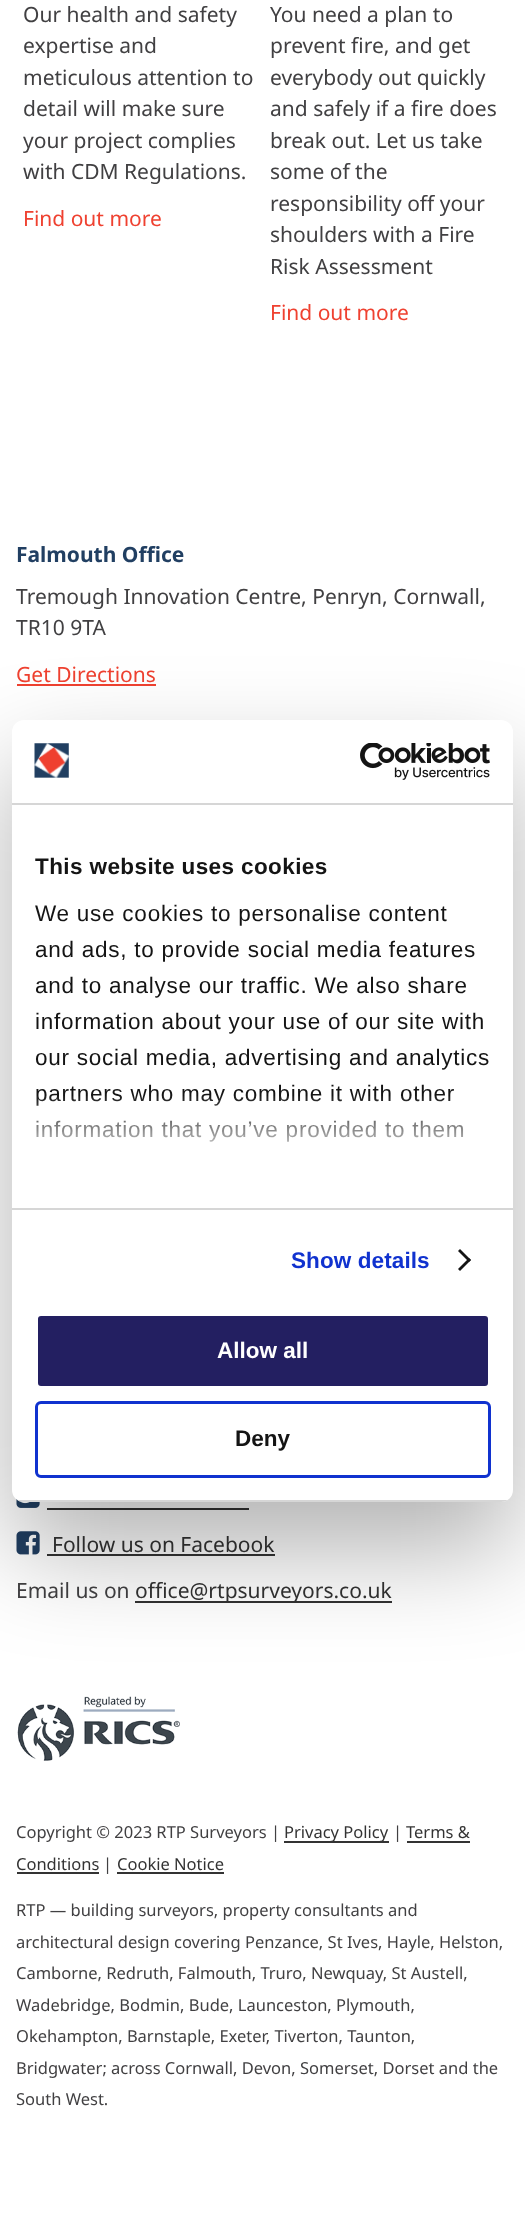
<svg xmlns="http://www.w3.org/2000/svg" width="525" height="2218">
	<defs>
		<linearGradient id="g1" gradientUnits="userSpaceOnUse" x1="253" y1="1207" x2="253" y2="1094"><stop offset="0" stop-color="#FFFFFF" /><stop offset="0.5" stop-color="#FFFFFF" stop-opacity="0.8" /><stop offset="1" stop-color="#FFFFFF" stop-opacity="0" /></linearGradient>
		<clipPath id="clip1"><rect x="12" y="720" width="501" height="782" rx="12" /></clipPath>
	</defs>
	<rect width="100%" height="100%" fill="#FFFFFF" />
	<g font-family="Noto Sans" font-size="21" fill="#414042">
		<text x="23" y="22">Our health and safety</text>
		<text x="23" y="53">expertise and</text>
		<text x="23" y="85">meticulous attention to</text>
		<text x="23" y="116">detail will make sure</text>
		<text x="23" y="148">your project complies</text>
		<text x="23" y="179">with CDM Regulations.</text>
	</g>
	<text x="23" y="226" font-family="Noto Sans" font-size="21" fill="#EF4130">Find out more</text>
	<g font-family="Noto Sans" font-size="21" fill="#414042">
		<text x="270" y="22">You need a plan to</text>
		<text x="270" y="53">prevent fire, and get</text>
		<text x="270" y="85">everybody out quickly</text>
		<text x="270" y="116">and safely if a fire does</text>
		<text x="270" y="148">break out. Let us take</text>
		<text x="270" y="179">some of the</text>
		<text x="270" y="211">responsibility off your</text>
		<text x="270" y="242">shoulders with a Fire</text>
		<text x="270" y="274">Risk Assessment</text>
	</g>
	<text x="270" y="320" font-family="Noto Sans" font-size="21" fill="#EF4130">Find out more</text>
	<text x="16" y="562" font-family="Noto Sans" font-size="21" font-weight="700" fill="#213F62">Falmouth Office</text>
	<g font-family="Noto Sans" font-size="21" fill="#414042">
		<text x="16" y="604">Tremough Innovation Centre, Penryn, Cornwall,</text>
		<text x="16" y="635">TR10 9TA</text>
	</g>
	<text x="16" y="682" font-family="Noto Sans" font-size="21" fill="#EF4130">Get Directions</text>
	<rect x="17" y="684" width="139" height="2" fill="#EF4130" />
	<image x="16" y="1498" width="24" height="10" href="assets/img1.png" />
	<rect x="47" y="1508" width="202" height="2" fill="#333333" />
	<image x="16" y="1531" width="24" height="24" href="assets/img2.png" />
	<text x="52" y="1552" font-family="Noto Sans" font-size="21" fill="#333333">Follow us on Facebook</text>
	<rect x="47" y="1554" width="228" height="2" fill="#333333" />
	<text x="16" y="1598" font-family="Noto Sans" font-size="21" fill="#414042">Email us on</text>
	<rect x="135" y="1601" width="257" height="2" fill="#333333" />
	<text x="135" y="1598" font-family="Noto Sans" font-size="21" fill="#333333">office@rtpsurveyors.co.uk</text>
	<image x="17" y="1696" width="163" height="65" href="assets/img3.png" />
	<text x="16" y="1838" font-family="Noto Sans" font-size="16.5" fill="#414042">Copyright © 2023 RTP Surveyors |</text>
	<rect x="284" y="1841" width="105" height="2" fill="#333333" />
	<text x="284" y="1838" font-family="Noto Sans" font-size="16.5" fill="#333333">Privacy Policy</text>
	<text x="393" y="1838" font-family="Noto Sans" font-size="16.5" fill="#414042">|</text>
	<text x="406" y="1838" font-family="Noto Sans" font-size="16.5" fill="#333333">Terms &amp;</text>
	<rect x="407" y="1841" width="63" height="2" fill="#333333" />
	<text x="16" y="1870" font-family="Noto Sans" font-size="16.5" fill="#333333">Conditions</text>
	<rect x="17" y="1872" width="82" height="2" fill="#333333" />
	<text x="103" y="1870" font-family="Noto Sans" font-size="16.5" fill="#414042">|</text>
	<text x="117" y="1870" font-family="Noto Sans" font-size="16.5" fill="#333333">Cookie Notice</text>
	<rect x="117" y="1872" width="107" height="2" fill="#333333" />
	<g font-family="Noto Sans" font-size="16.5" fill="#414042">
		<text x="16" y="1916">RTP — building surveyors, property consultants and</text>
		<text x="16" y="1948">architectural design covering Penzance, St Ives, Hayle, Helston,</text>
		<text x="16" y="1979">Camborne, Redruth, Falmouth, Truro, Newquay, St Austell,</text>
		<text x="16" y="2011">Wadebridge, Bodmin, Bude, Launceston, Plymouth,</text>
		<text x="16" y="2042">Okehampton, Barnstaple, Exeter, Tiverton, Taunton,</text>
		<text x="16" y="2074">Bridgwater; across Cornwall, Devon, Somerset, Dorset and the</text>
		<text x="16" y="2105">South West.</text>
	</g>
	<rect x="12" y="768" width="501" height="782" rx="12" fill="#000000" fill-opacity="0.3" filter="blur(51px)" />
	<rect x="12" y="720" width="501" height="782" rx="12" fill="#FFFFFF" />
	<rect x="12" y="803" width="501" height="2" fill="#D6D6D6" />
	<image x="34" y="743" width="35" height="35" href="assets/img4.png" />
	<image x="360" y="743" width="130" height="37" href="assets/img5.png" />
	<rect x="12" y="1208" width="501" height="2" fill="#D6D6D6" />
	<text x="35" y="874" font-family="Liberation Sans" font-size="22.5" font-weight="700" letter-spacing="0.4" fill="#141414">This website uses cookies</text>
	<g font-family="Liberation Sans" font-size="22.5" letter-spacing="0.75" fill="#141414">
		<text x="35" y="921">We use cookies to personalise content</text>
		<text x="35" y="957">and ads, to provide social media features</text>
		<text x="35" y="993">and to analyse our traffic. We also share</text>
		<text x="35" y="1029">information about your use of our site with</text>
		<text x="35" y="1065">our social media, advertising and analytics</text>
		<text x="35" y="1101">partners who may combine it with other</text>
		<text x="35" y="1137">information that you’ve provided to them</text>
	</g>
	<rect x="36" y="1096" width="427" height="46" fill="url(#g1)" />
	<text x="291" y="1268" font-family="Liberation Sans" font-size="22.5" font-weight="700" letter-spacing="0.1" fill="#1032CF">Show details</text>
	<path d="M460 1249L471 1260L469 1262L458 1251Z" fill="#141414" />
	<path d="M469 1258L471 1260L460 1271L458 1269Z" fill="#141414" />
	<g clip-path="url(#clip1)">
		<rect x="12" y="1500" width="501" height="2" fill="#D6D6D6" />
	</g>
	<rect x="36.5" y="1314.5" width="453" height="73" rx="4.5" fill="#231F61" stroke="#FFFFFF" stroke-width="3" />
	<text x="217" y="1358" font-family="Liberation Sans" font-size="22.5" font-weight="700" fill="#FFFFFF">Allow all</text>
	<rect x="36.5" y="1402.5" width="453" height="74" rx="4.5" fill="none" stroke="#1032CF" stroke-width="3" />
	<text x="235" y="1446" font-family="Liberation Sans" font-size="22.5" font-weight="700" fill="#141414">Deny</text>
</svg>
